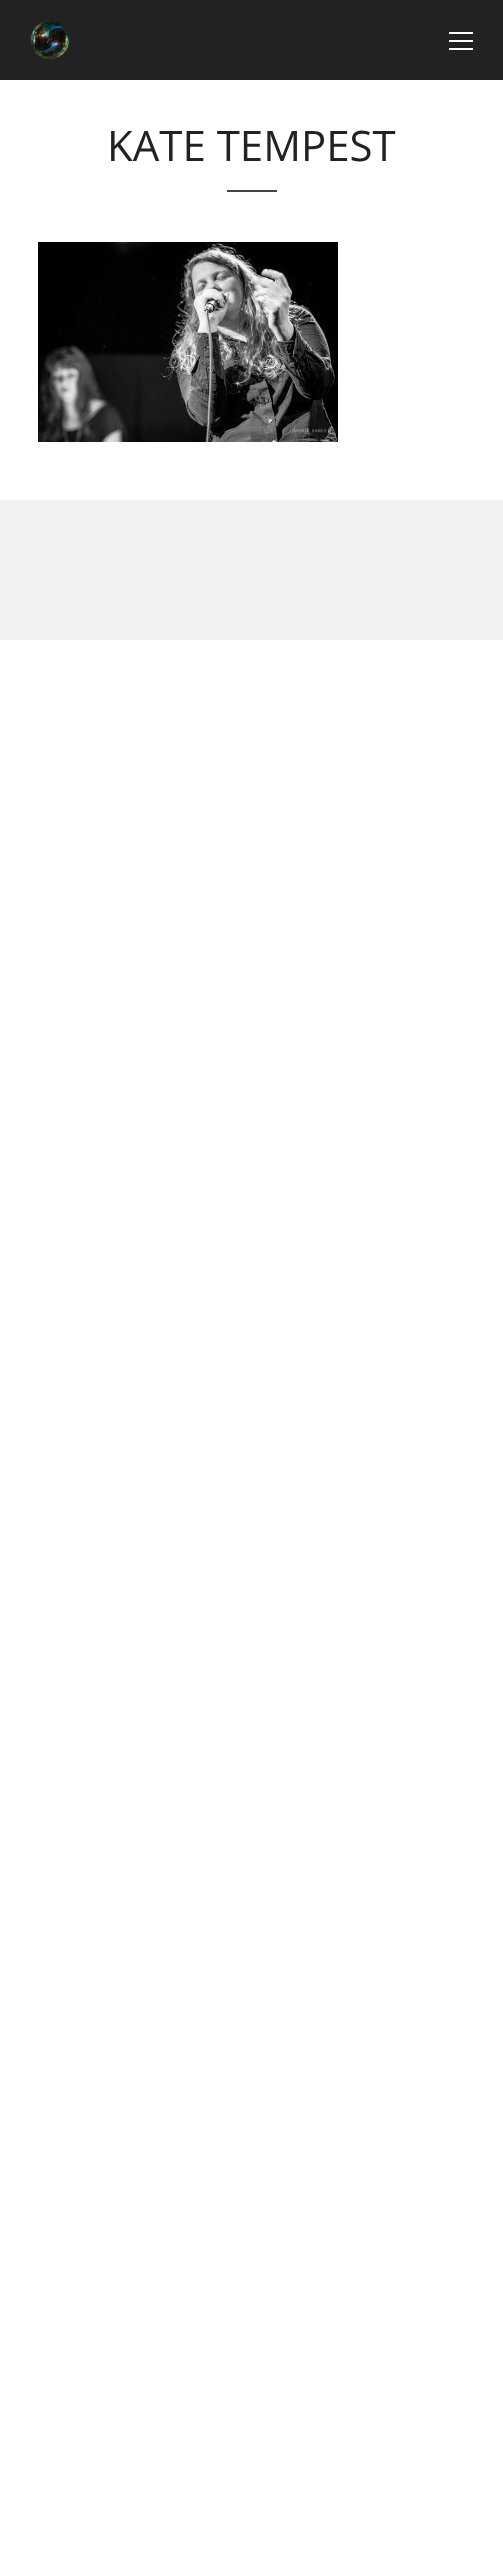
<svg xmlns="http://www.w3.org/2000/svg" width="503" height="2556">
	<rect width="100%" height="100%" fill="#FFFFFF" />
	<rect x="0" y="0" width="503" height="80" fill="#222222" />
	<image x="30" y="20" width="40" height="40" href="assets/img1.png" />
	<rect x="449" y="40" width="24" height="2" fill="#FFFFFF" />
	<rect x="449" y="32" width="24" height="2" fill="#FFFFFF" />
	<rect x="449" y="48" width="24" height="2" fill="#FFFFFF" />
	<text x="107" y="161" font-family="Open Sans" font-size="42" fill="#222222">KATE TEMPEST</text>
	<rect x="227" y="190" width="50" height="2" fill="#444444" />
	<image x="38" y="242" width="300" height="200" href="assets/img2.png" />
	<rect x="0" y="500" width="503" height="140" fill="#F1F1F1" />
</svg>
